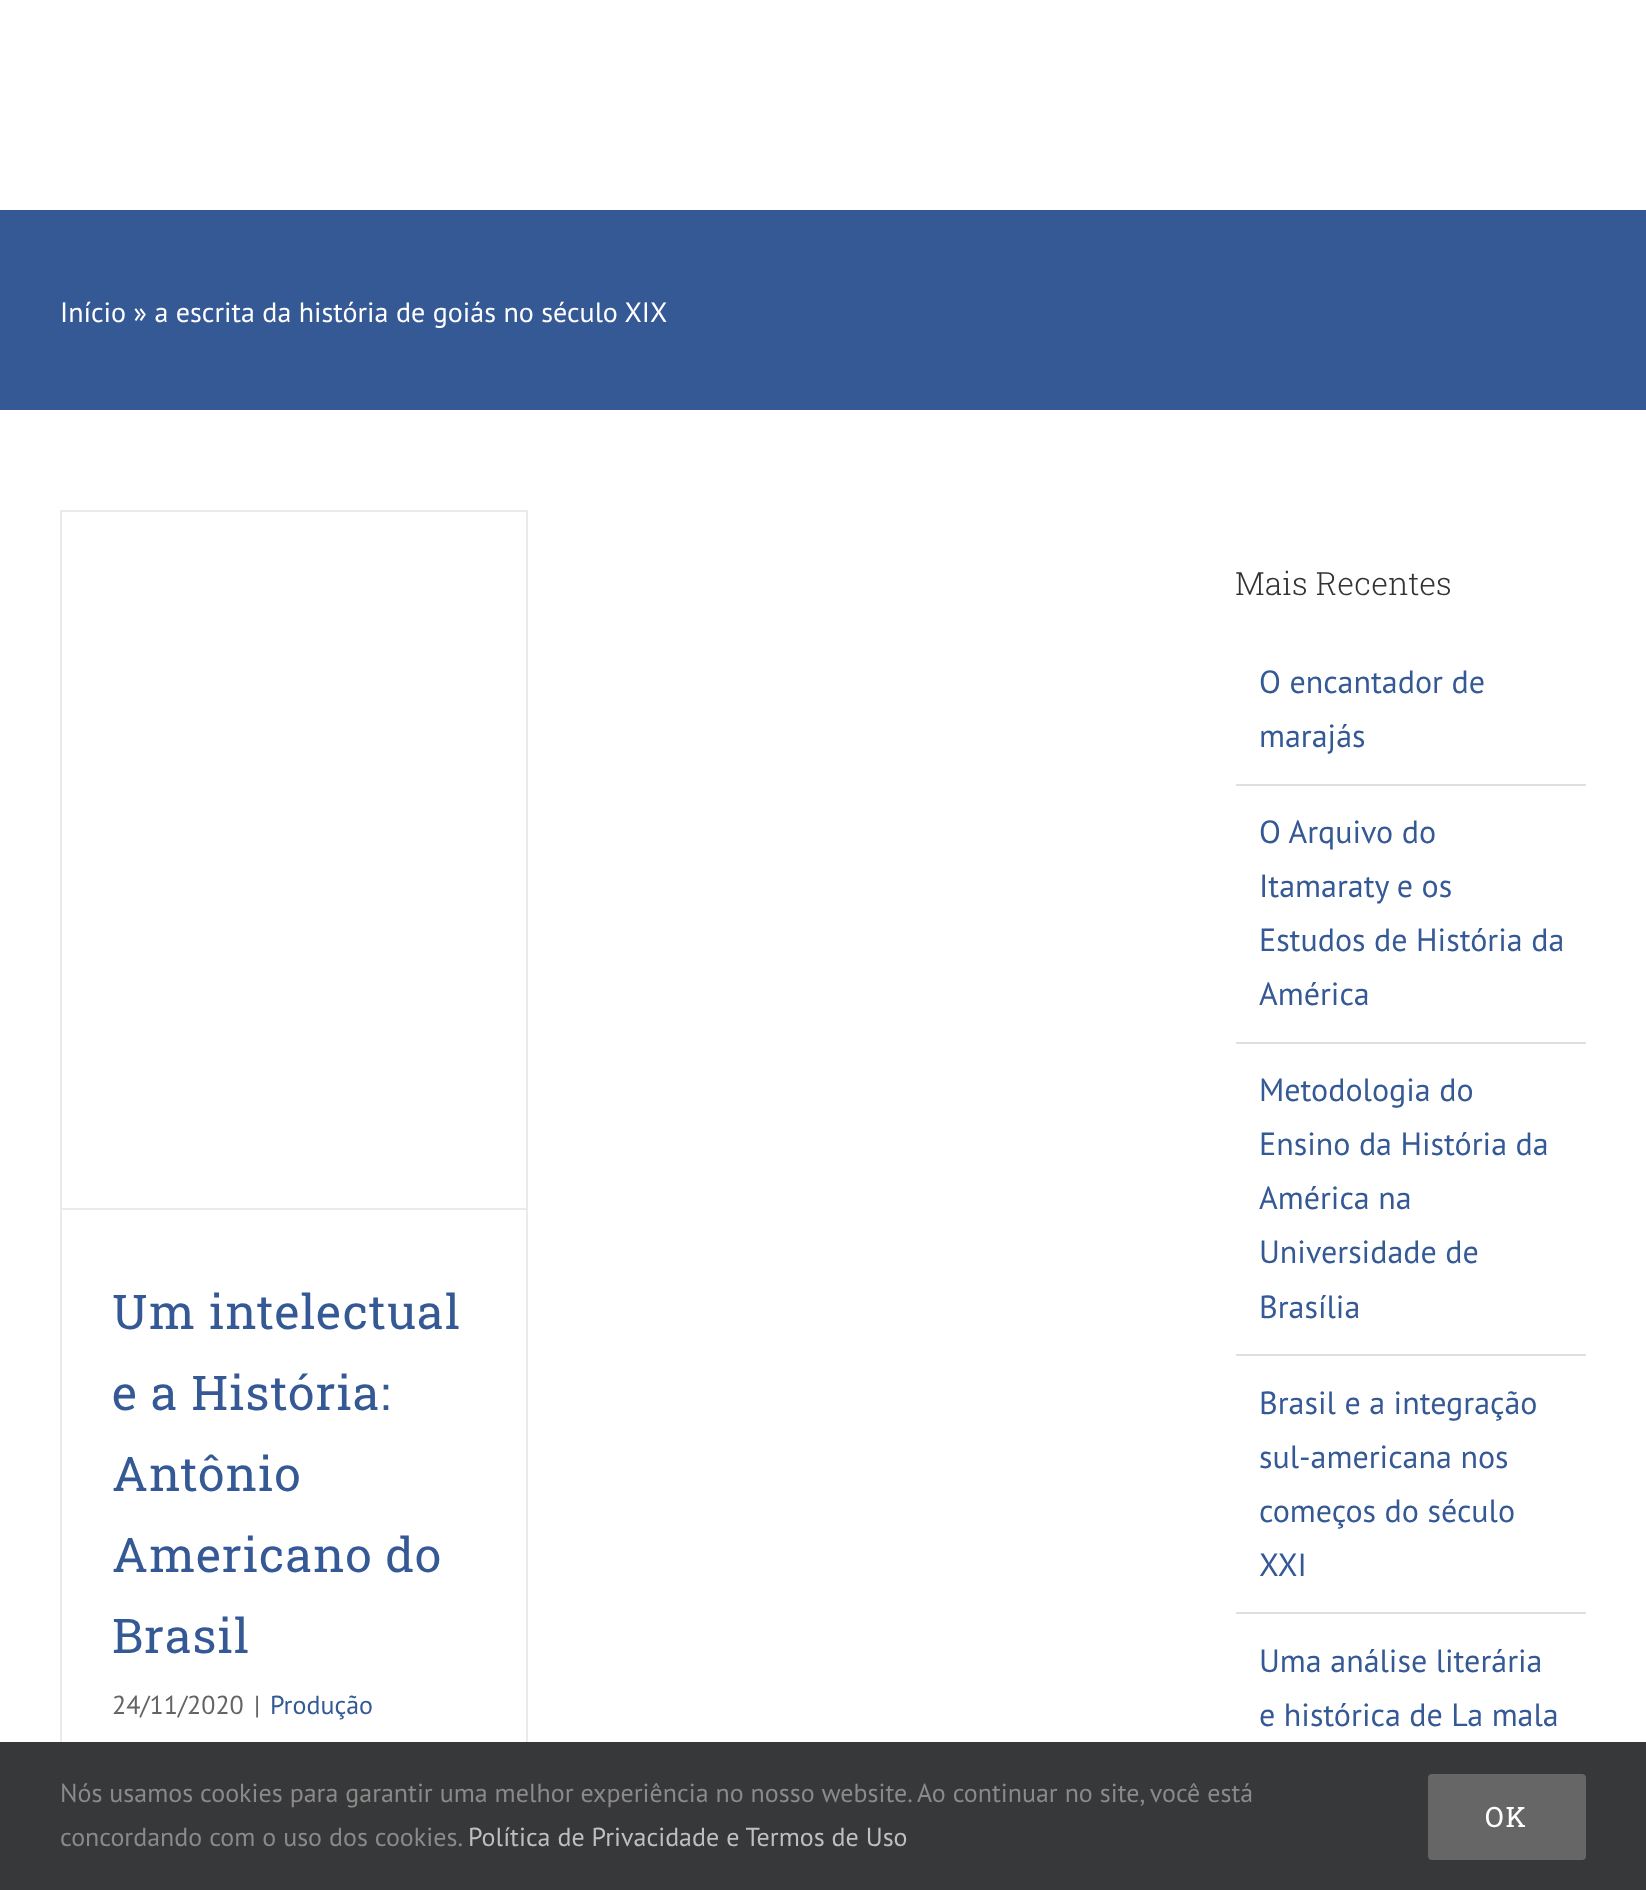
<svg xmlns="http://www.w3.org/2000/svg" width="1646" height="1890">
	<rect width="100%" height="100%" fill="#FFFFFF" />
	<rect x="0" y="210" width="1646" height="200" fill="#345995" />
	<text x="60" y="322" font-family="PT Sans" font-size="28" fill="#FFFFFF">Início » a escrita da história de goiás no século XIX</text>
	<rect x="60" y="510" width="468" height="2" fill="#EBEAEA" />
	<rect x="526" y="510" width="2" height="1232" fill="#EBEAEA" />
	<rect x="60" y="510" width="2" height="1232" fill="#EBEAEA" />
	<rect x="62" y="1208" width="464" height="2" fill="#EBEAEA" />
	<g font-family="Roboto Slab" font-size="48" letter-spacing="1" fill="#345995">
		<text x="112" y="1329">Um intelectual</text>
		<text x="112" y="1410">e a História:</text>
		<text x="112" y="1491">Antônio</text>
		<text x="112" y="1572">Americano do</text>
		<text x="112" y="1653">Brasil</text>
	</g>
	<g font-family="PT Sans" font-size="26" fill="#646464">
		<text x="112" y="1714">24/11/2020</text>
		<text x="254" y="1714">|</text>
	</g>
	<text x="270" y="1714" font-family="PT Sans" font-size="26" fill="#345995">Produção</text>
	<text x="1235" y="595" font-family="Roboto Slab" font-size="32" font-weight="300" fill="#333333">Mais Recentes</text>
	<rect x="1236" y="784" width="350" height="2" fill="#E0DEDE" />
	<g font-family="PT Sans" font-size="32" fill="#345995">
		<text x="1259" y="693">O encantador de</text>
		<text x="1259" y="747">marajás</text>
	</g>
	<rect x="1236" y="1042" width="350" height="2" fill="#E0DEDE" />
	<g font-family="PT Sans" font-size="32" fill="#345995">
		<text x="1259" y="843">O Arquivo do</text>
		<text x="1259" y="897">Itamaraty e os</text>
		<text x="1259" y="951">Estudos de História da</text>
		<text x="1259" y="1005">América</text>
	</g>
	<rect x="1236" y="1354" width="350" height="2" fill="#E0DEDE" />
	<g font-family="PT Sans" font-size="32" fill="#345995">
		<text x="1259" y="1101">Metodologia do</text>
		<text x="1259" y="1155">Ensino da História da</text>
		<text x="1259" y="1209">América na</text>
		<text x="1259" y="1263">Universidade de</text>
		<text x="1259" y="1318">Brasília</text>
	</g>
	<rect x="1236" y="1612" width="350" height="2" fill="#E0DEDE" />
	<g font-family="PT Sans" font-size="32" fill="#345995">
		<text x="1259" y="1414">Brasil e a integração</text>
		<text x="1259" y="1468">sul-americana nos</text>
		<text x="1259" y="1522">começos do século</text>
		<text x="1259" y="1576">XXI</text>
		<text x="1259" y="1672">Uma análise literária</text>
		<text x="1259" y="1726">e histórica de La mala</text>
	</g>
	<rect x="0" y="1742" width="1646" height="148" fill="#363839" />
	<g font-family="PT Sans" font-size="26" fill="#8C8989">
		<text x="60" y="1802">Nós usamos cookies para garantir uma melhor experiência no nosso website. Ao continuar no site, você está</text>
		<text x="60" y="1846">concordando com o uso dos cookies.</text>
	</g>
	<text x="468" y="1846" font-family="PT Sans" font-size="26" fill="#BFBFBF">Política de Privacidade e Termos de Uso</text>
	<rect x="1428" y="1774" width="158" height="86" rx="4" fill="#666666" />
	<text x="1485" y="1827" font-family="Roboto Slab" font-size="28" letter-spacing="2" fill="#FFFFFF">OK</text>
</svg>
